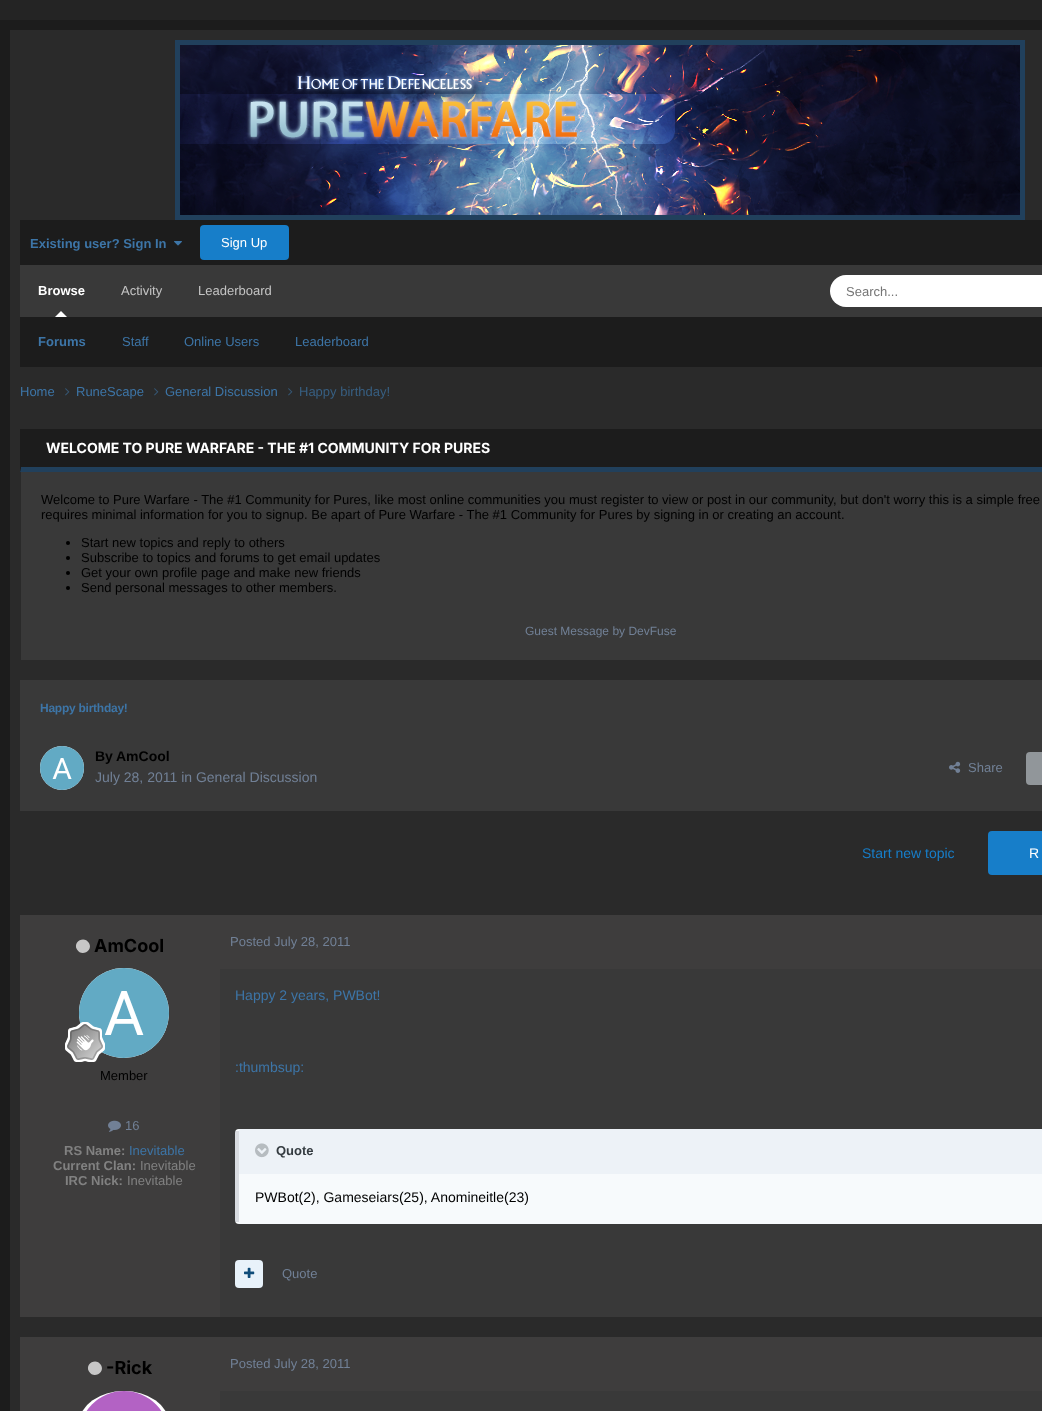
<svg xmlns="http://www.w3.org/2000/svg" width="1042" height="1411">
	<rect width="100%" height="100%" fill="#242424" />
	<rect x="5" y="25" width="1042" height="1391" fill="#2A2A2A" stroke="#1C1C1C" stroke-width="10" />
	<image x="175" y="40" width="850" height="180" href="assets/img1.png" />
	<rect x="20" y="220" width="1022" height="45" fill="#1C1C1C" />
	<text x="30" y="248" font-family="Liberation Sans" font-size="13" font-weight="700" fill="#3D75A7">Existing user? Sign In</text>
	<image x="174" y="241" width="8" height="5" href="assets/img2.png" />
	<rect x="200" y="225" width="89" height="35" rx="4" fill="#177EC9" />
	<text x="221" y="247" font-family="Liberation Sans" font-size="13" fill="#FFFFFF">Sign Up</text>
	<rect x="20" y="265" width="1022" height="52" fill="#393939" />
	<g font-family="Liberation Sans" font-size="13" fill="#C4C4C4">
		<text x="121" y="295">Activity</text>
		<text x="198" y="295">Leaderboard</text>
	</g>
	<text x="38" y="295" font-family="Liberation Sans" font-size="13" font-weight="700" fill="#FFFFFF">Browse</text>
	<path d="M67 317H55L61 311Z" fill="#FFFFFF" />
	<rect x="20" y="317" width="1022" height="50" fill="#1C1C1C" />
	<text x="38" y="346" font-family="Liberation Sans" font-size="13" font-weight="700" fill="#3D75A7">Forums</text>
	<g font-family="Liberation Sans" font-size="13" fill="#3D75A7">
		<text x="122" y="346">Staff</text>
		<text x="184" y="346">Online Users</text>
		<text x="295" y="346">Leaderboard</text>
	</g>
	<rect x="830" y="275" width="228" height="32" rx="16" fill="#FFFFFF" />
	<text x="846" y="296" font-family="Liberation Sans" font-size="13" fill="#757575">Search...</text>
	<text x="20" y="396" font-family="Liberation Sans" font-size="13" fill="#3D75A7">Home</text>
	<image x="65" y="388" width="5" height="8" href="assets/img3.png" />
	<text x="76" y="396" font-family="Liberation Sans" font-size="13" fill="#3D75A7">RuneScape</text>
	<image x="154" y="388" width="5" height="8" href="assets/img3.png" />
	<text x="165" y="396" font-family="Liberation Sans" font-size="13" fill="#3D75A7">General Discussion</text>
	<image x="288" y="388" width="5" height="8" href="assets/img3.png" />
	<text x="299" y="396" font-family="Liberation Sans" font-size="13" fill="#375F82">Happy birthday!</text>
	<rect x="20" y="429" width="1022" height="43" fill="#1C1C1C" />
	<path d="M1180 472H20L21 467H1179Z" fill="#21405C" />
	<path d="M20 472V429H21V467Z" fill="#1C1C1C" />
	<text x="46" y="453" font-family="Inter" font-size="14" font-weight="700" fill="#FFFFFF">WELCOME TO PURE WARFARE - THE #1 COMMUNITY FOR PURES</text>
	<rect x="21" y="472" width="1021" height="188" fill="#393939" />
	<g font-family="Liberation Sans" font-size="13" fill="#000000">
		<text x="41" y="504">Welcome to Pure Warfare - The #1 Community for Pures, like most online communities you must register to view or post in our community, but don't worry this is a simple free</text>
		<text x="41" y="519">requires minimal information for you to signup. Be apart of Pure Warfare - The #1 Community for Pures by signing in or creating an account.</text>
	</g>
	<circle cx="68" cy="543" r="2" fill="#000000" />
	<text x="81" y="547" font-family="Liberation Sans" font-size="13" fill="#000000">Start new topics and reply to others</text>
	<circle cx="68" cy="558" r="2" fill="#000000" />
	<text x="81" y="562" font-family="Liberation Sans" font-size="13" fill="#000000">Subscribe to topics and forums to get email updates</text>
	<circle cx="68" cy="573" r="2" fill="#000000" />
	<text x="81" y="577" font-family="Liberation Sans" font-size="13" fill="#000000">Get your own profile page and make new friends</text>
	<circle cx="68" cy="588" r="2" fill="#000000" />
	<text x="81" y="592" font-family="Liberation Sans" font-size="13" fill="#000000">Send personal messages to other members.</text>
	<text x="525" y="635" font-family="Liberation Sans" font-size="12" fill="#718096">Guest Message by DevFuse</text>
	<rect x="20" y="680" width="1022" height="131" fill="#393939" />
	<text x="40" y="712" font-family="Liberation Sans" font-size="12" font-weight="700" letter-spacing="-0.25" fill="#3D75A7">Happy birthday!</text>
	<circle cx="62" cy="768" r="22" fill="#FFFFFF" />
	<image x="40" y="746" width="44" height="44" href="assets/img4.png" />
	<g font-family="Liberation Sans" font-size="14" font-weight="700" fill="#000000">
		<text x="95" y="761">By</text>
		<text x="116" y="761">AmCool</text>
	</g>
	<text x="95" y="782" font-family="Liberation Sans" font-size="14" fill="#718096">July 28, 2011 in General Discussion</text>
	<image x="949" y="761" width="12" height="12" href="assets/img5.png" />
	<text x="968" y="772" font-family="Liberation Sans" font-size="13" fill="#718096">Share</text>
	<rect x="1026" y="752" width="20" height="33" rx="4" fill="#91969A" />
	<text x="862" y="858" font-family="Liberation Sans" font-size="14" fill="#177EC9">Start new topic</text>
	<rect x="988" y="831" width="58" height="44" rx="4" fill="#177EC9" />
	<text x="1029" y="858" font-family="Liberation Sans" font-size="14" fill="#FFFFFF">R</text>
	<rect x="220" y="969" width="822" height="348" fill="#393939" />
	<rect x="20" y="915" width="200" height="402" fill="#3E3D3D" />
	<path d="M89 943C93.5 950.5 81.5 957.5 77 949.5C72.5 942 84 935 89 943Z" fill="#C7C7C7" />
	<text x="94" y="952" font-family="Inter" font-size="18" font-weight="700" fill="#000000">AmCool</text>
	<circle cx="124" cy="1013" r="45" fill="#FFFFFF" />
	<image x="79" y="968" width="90" height="90" href="assets/img6.png" />
	<image x="65" y="1022" width="40" height="40" href="assets/img7.png" />
	<text x="100" y="1080" font-family="Liberation Sans" font-size="13" fill="#000000">Member</text>
	<image x="108" y="1120" width="13" height="12" href="assets/img8.png" />
	<text x="125" y="1130" font-family="Liberation Sans" font-size="13" fill="#718096">16</text>
	<text x="64" y="1155" font-family="Liberation Sans" font-size="13" font-weight="700" fill="#818181">RS Name:</text>
	<text x="129" y="1155" font-family="Liberation Sans" font-size="13" fill="#3D75A7">Inevitable</text>
	<text x="53" y="1170" font-family="Liberation Sans" font-size="13" font-weight="700" fill="#818181">Current Clan:</text>
	<text x="140" y="1170" font-family="Liberation Sans" font-size="13" fill="#818181">Inevitable</text>
	<text x="65" y="1185" font-family="Liberation Sans" font-size="13" font-weight="700" fill="#818181">IRC Nick:</text>
	<text x="127" y="1185" font-family="Liberation Sans" font-size="13" fill="#818181">Inevitable</text>
	<rect x="220" y="915" width="822" height="54" fill="#3E3D3D" />
	<text x="230" y="946" font-family="Liberation Sans" font-size="13" fill="#718096">Posted July 28, 2011</text>
	<g font-family="Liberation Sans" font-size="14" fill="#3D75A7">
		<text x="235" y="1000">Happy 2 years, PWBot!</text>
		<text x="235" y="1072">:thumbsup:</text>
	</g>
	<rect x="235" y="1129" width="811" height="95" rx="4" fill="#F7FAFC" />
	<rect x="235" y="1131" width="4" height="91" fill="#2D3748" fill-opacity="0.15" />
	<rect x="239" y="1129" width="803" height="45" fill="#EDF2F7" />
	<image x="255" y="1143" width="14" height="15" href="assets/img9.png" />
	<text x="276" y="1155" font-family="Liberation Sans" font-size="13" font-weight="700" fill="#353C41">Quote</text>
	<text x="255" y="1202" font-family="Liberation Sans" font-size="14" fill="#000000">PWBot(2), Gameseiars(25), Anomineitle(23)</text>
	<rect x="235" y="1260" width="28" height="28" rx="4" fill="#E8F2FA" />
	<image x="244" y="1267" width="11" height="11" href="assets/img10.png" />
	<text x="282" y="1278" font-family="Liberation Sans" font-size="13" fill="#718096">Quote</text>
	<rect x="220" y="1391" width="822" height="20" fill="#393939" />
	<rect x="20" y="1337" width="200" height="74" fill="#3E3D3D" />
	<path d="M101 1365C105.5 1372.5 93.5 1379.5 89 1371.5C84.5 1364 96 1357 101 1365Z" fill="#C7C7C7" />
	<text x="106" y="1374" font-family="Inter" font-size="18" font-weight="700" fill="#000000">-Rick</text>
	<rect x="79" y="1391" width="90" height="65" rx="45" fill="#FFFFFF" />
	<image x="86" y="1391" width="76" height="20" href="assets/img11.png" />
	<rect x="220" y="1337" width="822" height="54" fill="#3E3D3D" />
	<text x="230" y="1368" font-family="Liberation Sans" font-size="13" fill="#718096">Posted July 28, 2011</text>
</svg>
